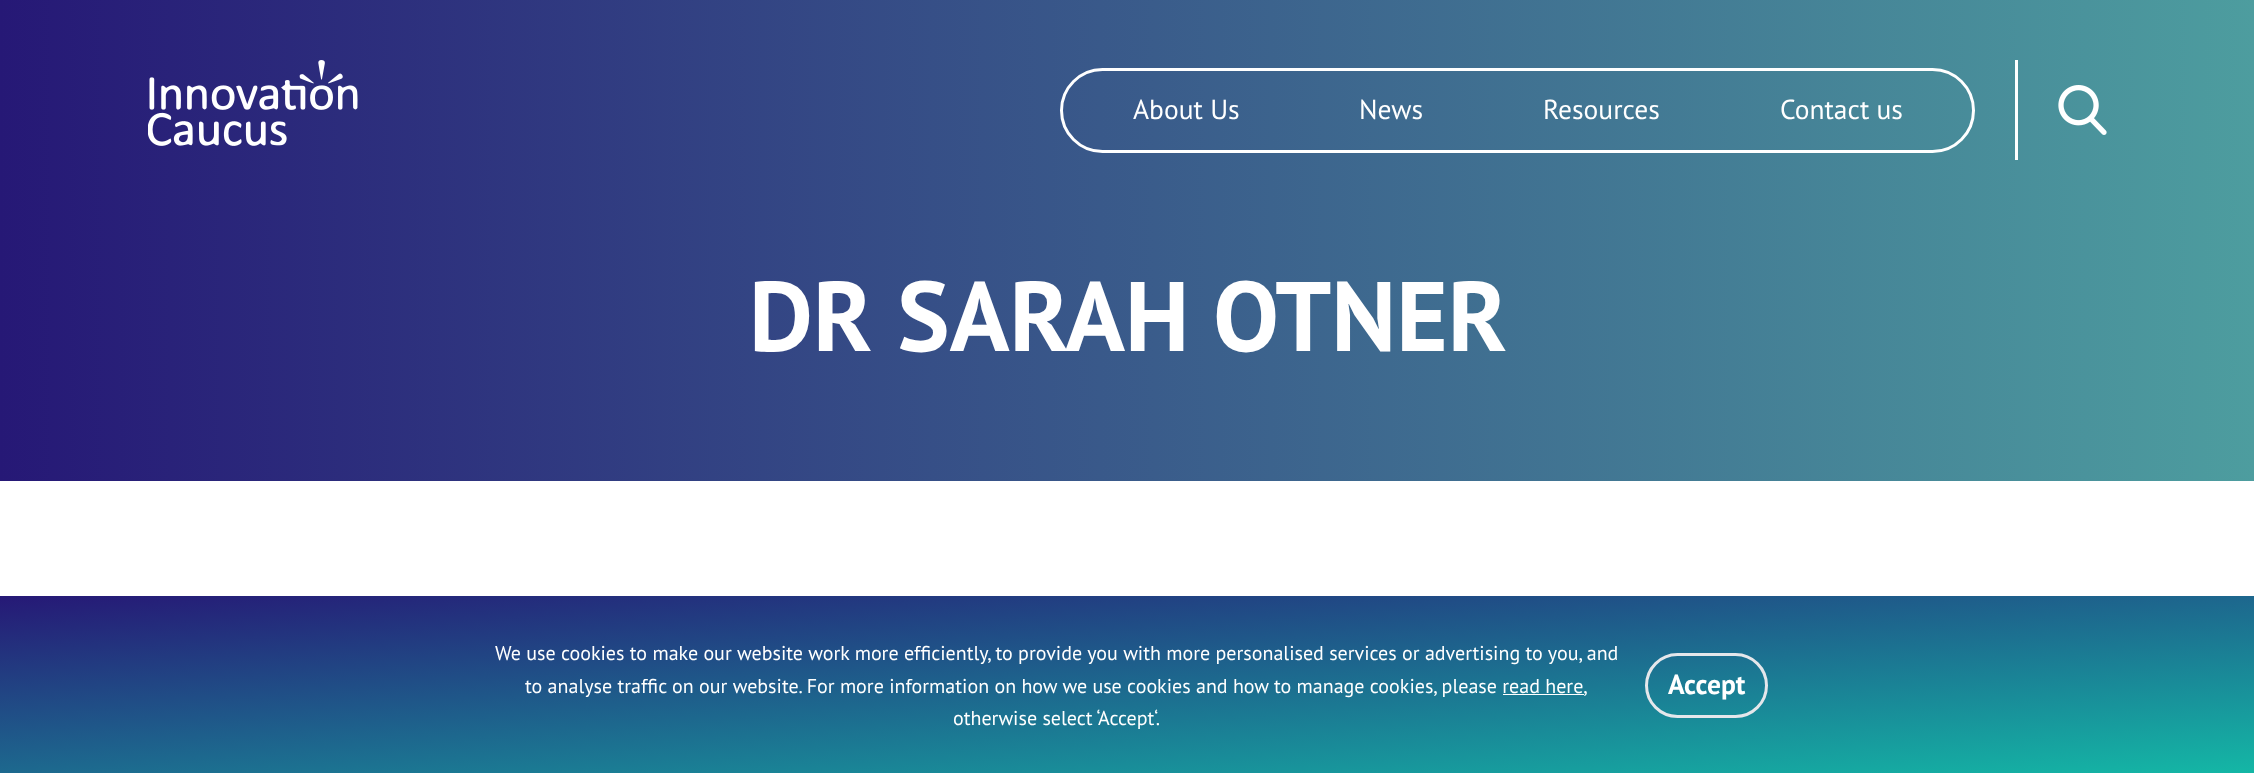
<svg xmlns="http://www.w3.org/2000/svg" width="2254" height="773">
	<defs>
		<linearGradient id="g1" gradientUnits="userSpaceOnUse" x1="0" y1="110" x2="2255" y2="110"><stop offset="0" stop-color="#261876" /><stop offset="1" stop-color="#4D9D9F" /></linearGradient>
		<linearGradient id="g2" gradientUnits="userSpaceOnUse" x1="0" y1="351" x2="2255" y2="351"><stop offset="0" stop-color="#261876" /><stop offset="1" stop-color="#4D9D9F" /></linearGradient>
		<linearGradient id="g3" gradientUnits="userSpaceOnUse" x1="1114" y1="509" x2="1141" y2="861"><stop offset="0" stop-color="#261876" /><stop offset="1" stop-color="#14B8A6" /></linearGradient>
	</defs>
	<rect width="100%" height="100%" fill="#FFFFFF" />
	<rect x="0" y="0" width="2254" height="220" fill="url(#g1)" />
	<image x="148" y="60" width="210" height="86" href="assets/img1.png" />
	<rect x="1061.5" y="69.5" width="912" height="82" rx="41" fill="none" stroke="#FFFFFF" stroke-width="3" />
	<g font-family="PT Sans" font-size="27.5" fill="#FFFFFF">
		<text x="1133" y="119">About Us</text>
		<text x="1359" y="119">News</text>
		<text x="1543" y="119">Resources</text>
		<text x="1780" y="119">Contact us</text>
	</g>
	<rect x="2015" y="60" width="3" height="100" fill="#FFFFFF" />
	<image x="2058" y="85" width="49" height="50" href="assets/img2.png" />
	<rect x="0" y="220" width="2254" height="261" fill="url(#g2)" />
	<text x="749" y="351" font-family="PT Sans" font-size="98.75" font-weight="700" fill="#FFFFFF">DR SARAH OTNER</text>
	<rect x="0" y="596" width="2254" height="177" fill="url(#g3)" />
	<g font-family="PT Sans" font-size="20" fill="#FFFFFF">
		<text x="495" y="660">We use cookies to make our website work more efficiently, to provide you with more personalised services or advertising to you, and</text>
		<text x="525" y="693">to analyse traffic on our website. For more information on how we use cookies and how to manage cookies, please read here,</text>
	</g>
	<rect x="1503" y="694" width="81" height="1" fill="#FFFFFF" />
	<text x="953" y="725" font-family="PT Sans" font-size="20" fill="#FFFFFF">otherwise select ‘Accept‘.</text>
	<rect x="1646.5" y="654.5" width="120" height="62" rx="31" fill="none" stroke="#E5E7EB" stroke-width="3" />
	<text x="1668" y="694" font-family="PT Sans" font-size="27.5" font-weight="700" fill="#FFFFFF">Accept</text>
</svg>
